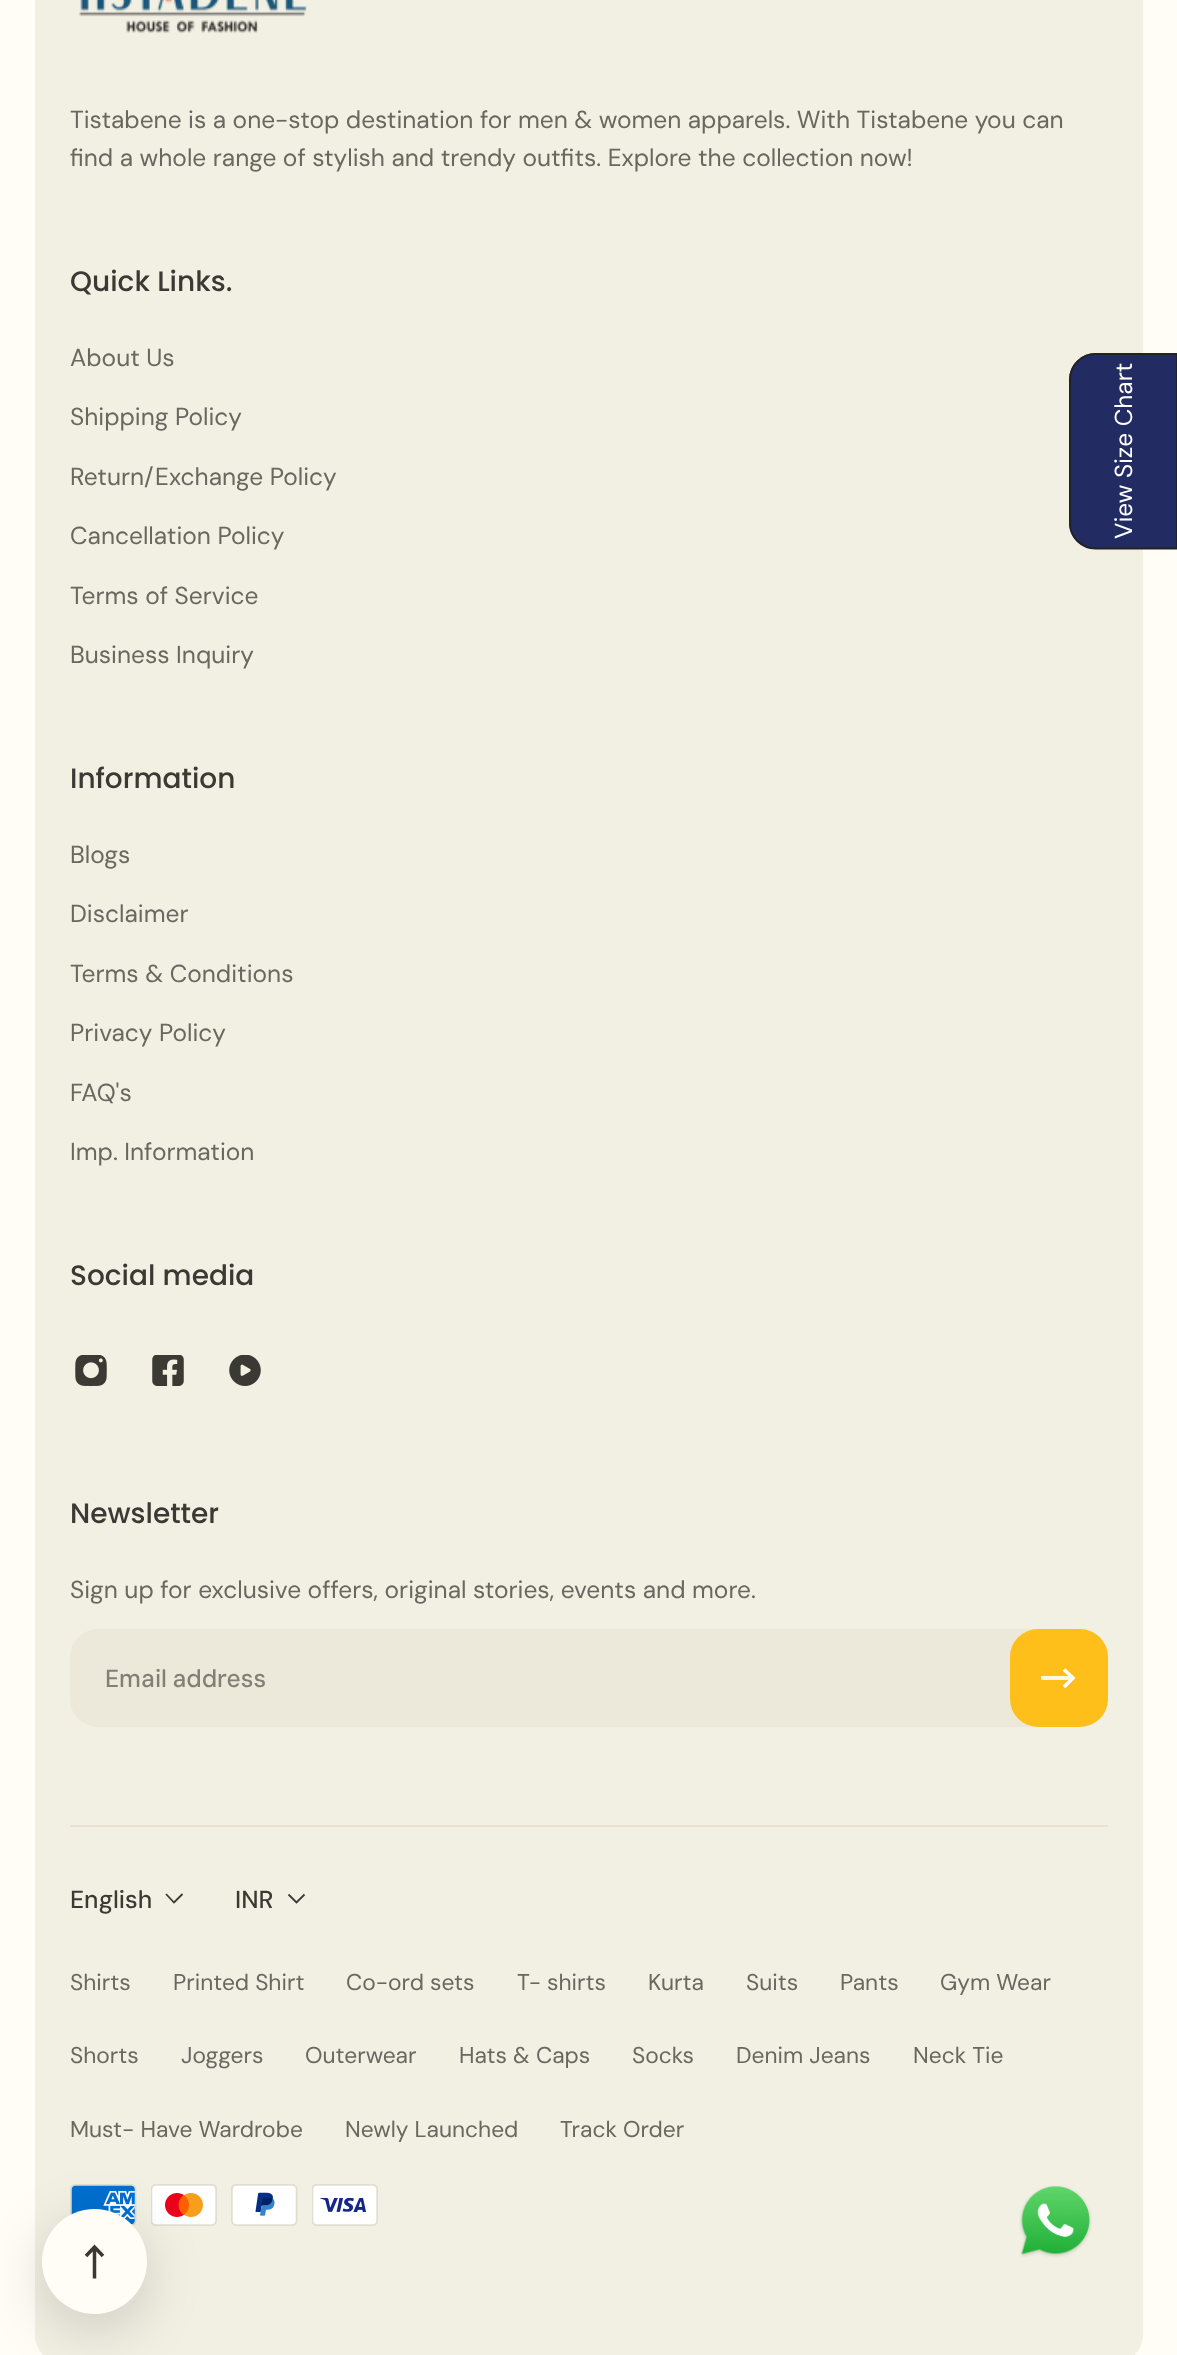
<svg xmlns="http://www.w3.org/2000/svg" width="1177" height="2355">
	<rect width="100%" height="100%" fill="#FFFDF5" />
	<rect x="35" y="-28" width="1108" height="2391" rx="28" fill="#F2EFE3" />
	<image x="79" y="0" width="228" height="33" href="assets/img1.png" />
	<g font-family="DM Sans" font-size="24.5" fill="#69675F">
		<text x="70" y="128">Tistabene is a one-stop destination for men &amp; women apparels. With Tistabene you can</text>
		<text x="70" y="166">find a whole range of stylish and trendy outfits. Explore the collection now!</text>
	</g>
	<text x="70" y="291" font-family="Poppins" font-size="28" font-weight="500" fill="#3B3933">Quick Links.</text>
	<g font-family="DM Sans" font-size="24.5" fill="#69675F">
		<text x="70" y="366">About Us</text>
		<text x="70" y="425">Shipping Policy</text>
		<text x="70" y="485">Return/Exchange Policy</text>
		<text x="70" y="544">Cancellation Policy</text>
		<text x="70" y="604">Terms of Service</text>
		<text x="70" y="663">Business Inquiry</text>
	</g>
	<text x="70" y="788" font-family="Poppins" font-size="28" font-weight="500" fill="#3B3933">Information</text>
	<g font-family="DM Sans" font-size="24.5" fill="#69675F">
		<text x="70" y="863">Blogs</text>
		<text x="70" y="922">Disclaimer</text>
		<text x="70" y="982">Terms &amp; Conditions</text>
		<text x="70" y="1041">Privacy Policy</text>
		<text x="70" y="1101">FAQ's</text>
		<text x="70" y="1160">Imp. Information</text>
	</g>
	<text x="70" y="1285" font-family="Poppins" font-size="28" font-weight="500" fill="#3B3933">Social media</text>
	<image x="75" y="1355" width="32" height="31" href="assets/img2.png" />
	<image x="152" y="1355" width="32" height="31" href="assets/img3.png" />
	<image x="229" y="1355" width="32" height="31" href="assets/img4.png" />
	<text x="70" y="1523" font-family="Poppins" font-size="28" font-weight="500" fill="#3B3933">Newsletter</text>
	<text x="70" y="1598" font-family="DM Sans" font-size="24.5" fill="#69675F">Sign up for exclusive offers, original stories, events and more.</text>
	<rect x="70" y="1629" width="1038" height="98" rx="28" fill="#ECE8DA" />
	<text x="105" y="1687" word-spacing="-1" font-family="DM Sans" font-size="24.5" font-weight="500" fill="#827F76">Email address</text>
	<rect x="1010" y="1629" width="98" height="98" rx="28" fill="#FFBF1A" />
	<rect x="1041" y="1676" width="32" height="4" fill="#FFF7E2" />
	<path d="M1064 1669.5L1073 1678L1064 1687" fill="none" stroke="#FFFFFF" stroke-width="3.5" />
	<rect x="70" y="1825" width="1038" height="2" fill="#E6E1D1" />
	<text x="70" y="1908" font-family="DM Sans" font-size="24.5" font-weight="500" fill="#3B3933">English</text>
	<path d="M182.5 1894L174 1902.5L166 1894" fill="none" stroke="#3B3933" stroke-width="1.8" />
	<text x="235" y="1908" font-family="DM Sans" font-size="24.5" font-weight="500" fill="#3B3933">INR</text>
	<path d="M304.5 1894.5L296.5 1902.5L288.5 1894.5" fill="none" stroke="#3B3933" stroke-width="1.8" />
	<g font-family="'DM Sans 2'" font-size="22.75" fill="#69675F">
		<text x="70" y="1990">Shirts</text>
		<text x="173" y="1990">Printed Shirt</text>
		<text x="346" y="1990">Co-ord sets</text>
		<text x="517" y="1990">T- shirts</text>
		<text x="648" y="1990">Kurta</text>
		<text x="746" y="1990">Suits</text>
		<text x="840" y="1990">Pants</text>
		<text x="940" y="1990">Gym Wear</text>
		<text x="70" y="2063">Shorts</text>
		<text x="181" y="2063">Joggers</text>
		<text x="305" y="2063">Outerwear</text>
		<text x="459" y="2063">Hats &amp; Caps</text>
		<text x="632" y="2063">Socks</text>
		<text x="736" y="2063">Denim Jeans</text>
		<text x="913" y="2063">Neck Tie</text>
		<text x="70" y="2137">Must- Have Wardrobe</text>
		<text x="345" y="2137">Newly Launched</text>
		<text x="560" y="2137">Track Order</text>
	</g>
	<image x="70" y="2184" width="67" height="42" href="assets/img5.png" />
	<image x="151" y="2184" width="66" height="42" href="assets/img6.png" />
	<image x="231" y="2184" width="67" height="42" href="assets/img7.png" />
	<image x="312" y="2184" width="66" height="42" href="assets/img8.png" />
	<path d="M1069 523V380C1069 365 1081 353 1096 353H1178V549H1096C1081 549 1069 538 1069 523Z" fill="#222C62" />
	<path d="M1070 523V379.5C1070 365.5 1081.5 354 1095.5 354H1177V548.5H1095.5C1081.5 548.5 1070 537 1070 523Z" fill="none" stroke="#232323" stroke-width="1.8" />
	<text x="1132" y="539" transform="rotate(-90 1132 539)" font-family="DM Sans" font-size="24.5" fill="#FFFFFF">View Size Chart</text>
	<rect x="42" y="2224" width="105" height="105" rx="52.5" fill="#000000" fill-opacity="0.15" filter="blur(28px)" />
	<circle cx="94.5" cy="2261.5" r="52.5" fill="#FFFDF5" />
	<path d="M94.5 2278.5V2247M86 2256L94.5 2247L103 2256" fill="none" stroke="#3B3933" stroke-width="3.5" />
	<image x="1019" y="2185" width="73" height="73" href="assets/img9.png" />
</svg>
